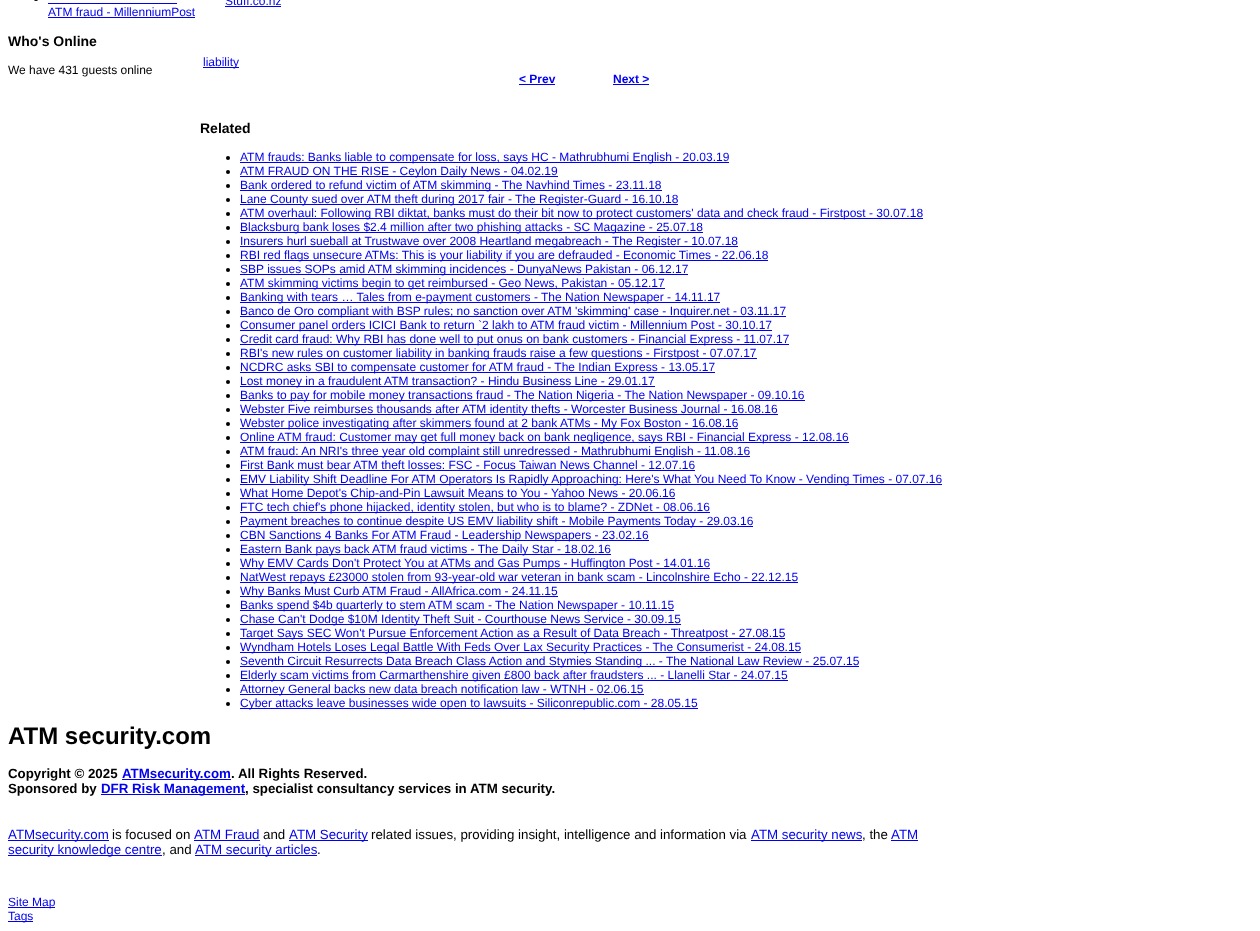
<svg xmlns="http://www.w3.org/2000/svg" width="1260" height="931">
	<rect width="100%" height="100%" fill="#FFFFFF" />
	<rect x="34" y="-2" width="4" height="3" rx="2" fill="#000000" />
	<text x="48" y="16" font-family="Liberation Sans" font-size="12" fill="#0000EE">ATM fraud - MillenniumPost</text>
	<rect x="48" y="3" width="129" height="1" fill="#0000EE" />
	<rect x="48" y="17" width="147" height="1" fill="#0000EE" />
	<text x="8" y="46" font-family="Liberation Sans" font-size="14" font-weight="700" fill="#000000">Who's Online</text>
	<text x="8" y="74" font-family="Liberation Sans" font-size="12" fill="#000000">We have 431 guests online</text>
	<text x="225" y="5" font-family="Liberation Sans" font-size="12" fill="#0000EE">Stuff.co.nz</text>
	<rect x="225" y="6" width="56" height="1" fill="#0000EE" />
	<rect x="203" y="67" width="36" height="1" fill="#0000EE" />
	<text x="203" y="66" font-family="Liberation Sans" font-size="12" fill="#0000EE">liability</text>
	<text x="519" y="83" font-family="Liberation Sans" font-size="12" font-weight="700" fill="#0000EE">&lt; Prev</text>
	<rect x="519" y="84" width="36" height="1" fill="#0000EE" />
	<text x="613" y="83" font-family="Liberation Sans" font-size="12" font-weight="700" fill="#0000EE">Next &gt;</text>
	<rect x="613" y="84" width="36" height="1" fill="#0000EE" />
	<text x="200" y="133" font-family="Liberation Sans" font-size="14" font-weight="700" fill="#000000">Related</text>
	<circle cx="228" cy="158" r="2" fill="#000000" />
	<rect x="240" y="162" width="489" height="1" fill="#0000EE" />
	<text x="240" y="161" font-family="Liberation Sans" font-size="12" fill="#0000EE">ATM frauds: Banks liable to compensate for loss, says HC - Mathrubhumi English - 20.03.19</text>
	<circle cx="228" cy="172" r="2" fill="#000000" />
	<rect x="240" y="176" width="318" height="1" fill="#0000EE" />
	<text x="240" y="175" font-family="Liberation Sans" font-size="12" fill="#0000EE">ATM FRAUD ON THE RISE - Ceylon Daily News - 04.02.19</text>
	<circle cx="228" cy="186" r="2" fill="#000000" />
	<rect x="240" y="190" width="422" height="1" fill="#0000EE" />
	<text x="240" y="189" font-family="Liberation Sans" font-size="12" fill="#0000EE">Bank ordered to refund victim of ATM skimming - The Navhind Times - 23.11.18</text>
	<circle cx="228" cy="200" r="2" fill="#000000" />
	<rect x="240" y="204" width="438" height="1" fill="#0000EE" />
	<text x="240" y="203" font-family="Liberation Sans" font-size="12" fill="#0000EE">Lane County sued over ATM theft during 2017 fair - The Register-Guard - 16.10.18</text>
	<circle cx="228" cy="214" r="2" fill="#000000" />
	<rect x="240" y="218" width="683" height="1" fill="#0000EE" />
	<text x="240" y="217" font-family="Liberation Sans" font-size="12" fill="#0000EE">ATM overhaul: Following RBI diktat, banks must do their bit now to protect customers' data and check fraud - Firstpost - 30.07.18</text>
	<circle cx="228" cy="228" r="2" fill="#000000" />
	<rect x="240" y="232" width="463" height="1" fill="#0000EE" />
	<text x="240" y="231" font-family="Liberation Sans" font-size="12" fill="#0000EE">Blacksburg bank loses $2.4 million after two phishing attacks - SC Magazine - 25.07.18</text>
	<circle cx="228" cy="242" r="2" fill="#000000" />
	<rect x="240" y="246" width="498" height="1" fill="#0000EE" />
	<text x="240" y="245" font-family="Liberation Sans" font-size="12" fill="#0000EE">Insurers hurl sueball at Trustwave over 2008 Heartland megabreach - The Register - 10.07.18</text>
	<circle cx="228" cy="256" r="2" fill="#000000" />
	<rect x="240" y="260" width="528" height="1" fill="#0000EE" />
	<text x="240" y="259" font-family="Liberation Sans" font-size="12" fill="#0000EE">RBI red flags unsecure ATMs: This is your liability if you are defrauded - Economic Times - 22.06.18</text>
	<circle cx="228" cy="270" r="2" fill="#000000" />
	<rect x="240" y="274" width="448" height="1" fill="#0000EE" />
	<text x="240" y="273" font-family="Liberation Sans" font-size="12" fill="#0000EE">SBP issues SOPs amid ATM skimming incidences - DunyaNews Pakistan - 06.12.17</text>
	<circle cx="228" cy="284" r="2" fill="#000000" />
	<rect x="240" y="288" width="425" height="1" fill="#0000EE" />
	<text x="240" y="287" font-family="Liberation Sans" font-size="12" fill="#0000EE">ATM skimming victims begin to get reimbursed - Geo News, Pakistan - 05.12.17</text>
	<circle cx="228" cy="298" r="2" fill="#000000" />
	<rect x="240" y="302" width="480" height="1" fill="#0000EE" />
	<text x="240" y="301" font-family="Liberation Sans" font-size="12" fill="#0000EE">Banking with tears … Tales from e-payment customers - The Nation Newspaper - 14.11.17</text>
	<circle cx="228" cy="312" r="2" fill="#000000" />
	<rect x="240" y="316" width="546" height="1" fill="#0000EE" />
	<text x="240" y="315" font-family="Liberation Sans" font-size="12" fill="#0000EE">Banco de Oro compliant with BSP rules; no sanction over ATM 'skimming' case - Inquirer.net - 03.11.17</text>
	<circle cx="228" cy="326" r="2" fill="#000000" />
	<rect x="240" y="330" width="532" height="1" fill="#0000EE" />
	<text x="240" y="329" font-family="Liberation Sans" font-size="12" fill="#0000EE">Consumer panel orders ICICI Bank to return `2 lakh to ATM fraud victim - Millennium Post - 30.10.17</text>
	<circle cx="228" cy="340" r="2" fill="#000000" />
	<rect x="240" y="344" width="549" height="1" fill="#0000EE" />
	<text x="240" y="343" font-family="Liberation Sans" font-size="12" fill="#0000EE">Credit card fraud: Why RBI has done well to put onus on bank customers - Financial Express - 11.07.17</text>
	<circle cx="228" cy="354" r="2" fill="#000000" />
	<rect x="240" y="358" width="517" height="1" fill="#0000EE" />
	<text x="240" y="357" font-family="Liberation Sans" font-size="12" fill="#0000EE">RBI's new rules on customer liability in banking frauds raise a few questions - Firstpost - 07.07.17</text>
	<circle cx="228" cy="368" r="2" fill="#000000" />
	<rect x="240" y="372" width="475" height="1" fill="#0000EE" />
	<text x="240" y="371" font-family="Liberation Sans" font-size="12" fill="#0000EE">NCDRC asks SBI to compensate customer for ATM fraud - The Indian Express - 13.05.17</text>
	<circle cx="228" cy="382" r="2" fill="#000000" />
	<rect x="240" y="386" width="415" height="1" fill="#0000EE" />
	<text x="240" y="385" font-family="Liberation Sans" font-size="12" fill="#0000EE">Lost money in a fraudulent ATM transaction? - Hindu Business Line - 29.01.17</text>
	<circle cx="228" cy="396" r="2" fill="#000000" />
	<rect x="240" y="400" width="565" height="1" fill="#0000EE" />
	<text x="240" y="399" font-family="Liberation Sans" font-size="12" fill="#0000EE">Banks to pay for mobile money transactions fraud - The Nation Nigeria - The Nation Newspaper - 09.10.16</text>
	<circle cx="228" cy="410" r="2" fill="#000000" />
	<rect x="240" y="414" width="538" height="1" fill="#0000EE" />
	<text x="240" y="413" font-family="Liberation Sans" font-size="12" fill="#0000EE">Webster Five reimburses thousands after ATM identity thefts - Worcester Business Journal - 16.08.16</text>
	<circle cx="228" cy="424" r="2" fill="#000000" />
	<rect x="240" y="428" width="498" height="1" fill="#0000EE" />
	<text x="240" y="427" font-family="Liberation Sans" font-size="12" fill="#0000EE">Webster police investigating after skimmers found at 2 bank ATMs - My Fox Boston - 16.08.16</text>
	<circle cx="228" cy="438" r="2" fill="#000000" />
	<rect x="240" y="442" width="609" height="1" fill="#0000EE" />
	<text x="240" y="441" font-family="Liberation Sans" font-size="12" fill="#0000EE">Online ATM fraud: Customer may get full money back on bank negligence, says RBI - Financial Express - 12.08.16</text>
	<circle cx="228" cy="452" r="2" fill="#000000" />
	<rect x="240" y="456" width="510" height="1" fill="#0000EE" />
	<text x="240" y="455" font-family="Liberation Sans" font-size="12" fill="#0000EE">ATM fraud: An NRI's three year old complaint still unredressed - Mathrubhumi English - 11.08.16</text>
	<circle cx="228" cy="466" r="2" fill="#000000" />
	<text x="240" y="469" font-family="Liberation Sans" font-size="12" fill="#0000EE">First Bank must bear ATM theft losses: FSC - Focus Taiwan News Channel - 12.07.16</text>
	<rect x="240" y="470" width="455" height="1" fill="#0000EE" />
	<circle cx="228" cy="480" r="2" fill="#000000" />
	<rect x="240" y="484" width="702" height="1" fill="#0000EE" />
	<text x="240" y="483" font-family="Liberation Sans" font-size="12" fill="#0000EE">EMV Liability Shift Deadline For ATM Operators Is Rapidly Approaching: Here's What You Need To Know - Vending Times - 07.07.16</text>
	<circle cx="228" cy="494" r="2" fill="#000000" />
	<rect x="240" y="498" width="435" height="1" fill="#0000EE" />
	<text x="240" y="497" font-family="Liberation Sans" font-size="12" fill="#0000EE">What Home Depot's Chip-and-Pin Lawsuit Means to You - Yahoo News - 20.06.16</text>
	<circle cx="228" cy="508" r="2" fill="#000000" />
	<rect x="240" y="512" width="470" height="1" fill="#0000EE" />
	<text x="240" y="511" font-family="Liberation Sans" font-size="12" fill="#0000EE">FTC tech chief's phone hijacked, identity stolen, but who is to blame? - ZDNet - 08.06.16</text>
	<circle cx="228" cy="522" r="2" fill="#000000" />
	<rect x="240" y="526" width="513" height="1" fill="#0000EE" />
	<text x="240" y="525" font-family="Liberation Sans" font-size="12" fill="#0000EE">Payment breaches to continue despite US EMV liability shift - Mobile Payments Today - 29.03.16</text>
	<circle cx="228" cy="536" r="2" fill="#000000" />
	<rect x="240" y="540" width="409" height="1" fill="#0000EE" />
	<text x="240" y="539" font-family="Liberation Sans" font-size="12" fill="#0000EE">CBN Sanctions 4 Banks For ATM Fraud - Leadership Newspapers - 23.02.16</text>
	<circle cx="228" cy="550" r="2" fill="#000000" />
	<rect x="240" y="554" width="371" height="1" fill="#0000EE" />
	<text x="240" y="553" font-family="Liberation Sans" font-size="12" fill="#0000EE">Eastern Bank pays back ATM fraud victims - The Daily Star - 18.02.16</text>
	<circle cx="228" cy="564" r="2" fill="#000000" />
	<rect x="240" y="568" width="470" height="1" fill="#0000EE" />
	<text x="240" y="567" font-family="Liberation Sans" font-size="12" fill="#0000EE">Why EMV Cards Don't Protect You at ATMs and Gas Pumps - Huffington Post - 14.01.16</text>
	<circle cx="228" cy="578" r="2" fill="#000000" />
	<rect x="240" y="582" width="558" height="1" fill="#0000EE" />
	<text x="240" y="581" font-family="Liberation Sans" font-size="12" fill="#0000EE">NatWest repays £23000 stolen from 93-year-old war veteran in bank scam - Lincolnshire Echo - 22.12.15</text>
	<circle cx="228" cy="592" r="2" fill="#000000" />
	<rect x="240" y="596" width="318" height="1" fill="#0000EE" />
	<text x="240" y="595" font-family="Liberation Sans" font-size="12" fill="#0000EE">Why Banks Must Curb ATM Fraud - AllAfrica.com - 24.11.15</text>
	<circle cx="228" cy="606" r="2" fill="#000000" />
	<rect x="240" y="610" width="434" height="1" fill="#0000EE" />
	<text x="240" y="609" font-family="Liberation Sans" font-size="12" fill="#0000EE">Banks spend $4b quarterly to stem ATM scam - The Nation Newspaper - 10.11.15</text>
	<circle cx="228" cy="620" r="2" fill="#000000" />
	<rect x="240" y="624" width="441" height="1" fill="#0000EE" />
	<text x="240" y="623" font-family="Liberation Sans" font-size="12" fill="#0000EE">Chase Can't Dodge $10M Identity Theft Suit - Courthouse News Service - 30.09.15</text>
	<circle cx="228" cy="634" r="2" fill="#000000" />
	<rect x="240" y="638" width="545" height="1" fill="#0000EE" />
	<text x="240" y="637" font-family="Liberation Sans" font-size="12" fill="#0000EE">Target Says SEC Won't Pursue Enforcement Action as a Result of Data Breach - Threatpost - 27.08.15</text>
	<circle cx="228" cy="648" r="2" fill="#000000" />
	<rect x="240" y="652" width="561" height="1" fill="#0000EE" />
	<text x="240" y="651" font-family="Liberation Sans" font-size="12" fill="#0000EE">Wyndham Hotels Loses Legal Battle With Feds Over Lax Security Practices - The Consumerist - 24.08.15</text>
	<circle cx="228" cy="662" r="2" fill="#000000" />
	<rect x="240" y="666" width="619" height="1" fill="#0000EE" />
	<text x="240" y="665" font-family="Liberation Sans" font-size="12" fill="#0000EE">Seventh Circuit Resurrects Data Breach Class Action and Stymies Standing ... - The National Law Review - 25.07.15</text>
	<circle cx="228" cy="676" r="2" fill="#000000" />
	<rect x="240" y="680" width="548" height="1" fill="#0000EE" />
	<text x="240" y="679" font-family="Liberation Sans" font-size="12" fill="#0000EE">Elderly scam victims from Carmarthenshire given £800 back after fraudsters ... - Llanelli Star - 24.07.15</text>
	<circle cx="228" cy="690" r="2" fill="#000000" />
	<rect x="240" y="694" width="404" height="1" fill="#0000EE" />
	<text x="240" y="693" font-family="Liberation Sans" font-size="12" fill="#0000EE">Attorney General backs new data breach notification law - WTNH - 02.06.15</text>
	<circle cx="228" cy="704" r="2" fill="#000000" />
	<rect x="240" y="708" width="458" height="1" fill="#0000EE" />
	<text x="240" y="707" font-family="Liberation Sans" font-size="12" fill="#0000EE">Cyber attacks leave businesses wide open to lawsuits - Siliconrepublic.com - 28.05.15</text>
	<text x="8" y="744" font-family="Liberation Sans" font-size="24" font-weight="700" fill="#000000">ATM security.com</text>
	<text x="8" y="778" font-family="Liberation Sans" font-size="13.3" font-weight="700" fill="#000000">Copyright © 2025</text>
	<rect x="122" y="779" width="109" height="1" fill="#0000EE" />
	<text x="122" y="778" font-family="Liberation Sans" font-size="13.3" font-weight="700" fill="#0000EE">ATMsecurity.com</text>
	<g font-family="Liberation Sans" font-size="13.3" font-weight="700" fill="#000000">
		<text x="231" y="778">. All Rights Reserved.</text>
		<text x="8" y="793">Sponsored by</text>
	</g>
	<rect x="101" y="794" width="144" height="1" fill="#0000EE" />
	<text x="101" y="793" font-family="Liberation Sans" font-size="13.3" font-weight="700" fill="#0000EE">DFR Risk Management</text>
	<text x="245" y="793" font-family="Liberation Sans" font-size="13.3" font-weight="700" fill="#000000">, specialist consultancy services in ATM security.</text>
	<rect x="8" y="840" width="101" height="1" fill="#0000EE" />
	<text x="8" y="839" font-family="Liberation Sans" font-size="13.3" fill="#0000EE">ATMsecurity.com</text>
	<text x="112" y="839" font-family="Liberation Sans" font-size="13.3" fill="#000000">is focused on</text>
	<text x="194" y="839" font-family="Liberation Sans" font-size="13.3" fill="#0000EE">ATM Fraud</text>
	<rect x="194" y="840" width="66" height="1" fill="#0000EE" />
	<text x="263" y="839" font-family="Liberation Sans" font-size="13.3" fill="#000000">and</text>
	<rect x="289" y="840" width="79" height="1" fill="#0000EE" />
	<text x="289" y="839" font-family="Liberation Sans" font-size="13.3" fill="#0000EE">ATM Security</text>
	<text x="371" y="839" font-family="Liberation Sans" font-size="13.3" fill="#000000">related issues, providing insight, intelligence and information via</text>
	<rect x="751" y="840" width="111" height="1" fill="#0000EE" />
	<text x="751" y="839" font-family="Liberation Sans" font-size="13.3" fill="#0000EE">ATM security news</text>
	<text x="862" y="839" font-family="Liberation Sans" font-size="13.3" fill="#000000">, the</text>
	<text x="891" y="839" font-family="Liberation Sans" font-size="13.3" fill="#0000EE">ATM</text>
	<rect x="891" y="840" width="27" height="1" fill="#0000EE" />
	<rect x="8" y="855" width="154" height="1" fill="#0000EE" />
	<text x="8" y="854" font-family="Liberation Sans" font-size="13.3" fill="#0000EE">security knowledge centre</text>
	<text x="162" y="854" font-family="Liberation Sans" font-size="13.3" fill="#000000">, and</text>
	<rect x="195" y="855" width="122" height="1" fill="#0000EE" />
	<text x="195" y="854" font-family="Liberation Sans" font-size="13.3" fill="#0000EE">ATM security articles</text>
	<text x="317" y="854" font-family="Liberation Sans" font-size="13.3" fill="#000000">.</text>
	<rect x="8" y="907" width="47" height="1" fill="#0000EE" />
	<text x="8" y="906" font-family="Liberation Sans" font-size="12" fill="#0000EE">Site Map</text>
	<rect x="8" y="921" width="25" height="1" fill="#0000EE" />
	<text x="8" y="920" font-family="Liberation Sans" font-size="12" fill="#0000EE">Tags</text>
</svg>
